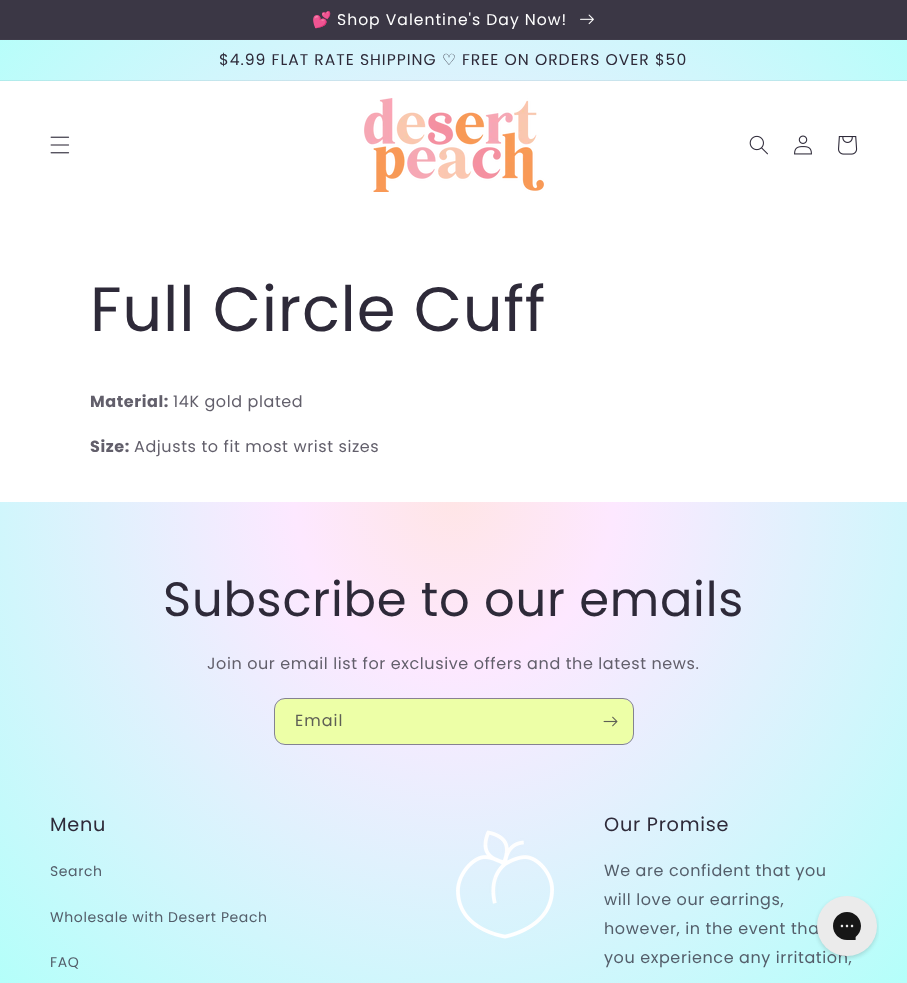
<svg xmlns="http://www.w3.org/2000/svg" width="907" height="983">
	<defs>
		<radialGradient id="g1" gradientUnits="userSpaceOnUse" cx="0" cy="0" r="1" gradientTransform="matrix(641 0 0 695 454 492)"><stop offset="0" stop-color="#FFE5E5" /><stop offset="0.25" stop-color="#FDE8FF" /><stop offset="1" stop-color="#B4FFFA" /></radialGradient>
		<radialGradient id="g2" gradientUnits="userSpaceOnUse" cx="0" cy="0" r="1" gradientTransform="matrix(641 0 0 695 454 492)"><stop offset="0" stop-color="#EED6D7" /><stop offset="0.25" stop-color="#ECD9EF" /><stop offset="1" stop-color="#A9EEEB" /></radialGradient>
	</defs>
	<rect width="100%" height="100%" fill="#FFFFFF" />
	<rect x="0" y="39" width="907" height="1" fill="#3F3B49" />
	<rect x="0" y="0" width="907" height="39" fill="#3B3745" />
	<text x="312" y="25" font-family="Noto Color Emoji" font-size="15.6" letter-spacing="1" fill="#FFFFFF">💕</text>
	<text x="337" y="25" font-family="Poppins" font-size="15.6" letter-spacing="1" fill="#FFFFFF">Shop Valentine's Day Now!</text>
	<image x="580" y="14" width="14" height="11" href="assets/img1.png" />
	<rect x="0" y="40" width="907" height="40" fill="url(#g1)" />
	<rect x="0" y="80" width="907" height="1" fill="url(#g2)" />
	<text x="219" y="65" font-family="Poppins" font-size="15.6" letter-spacing="1" fill="#2E2A39">$4.99 FLAT RATE SHIPPING</text>
	<text x="442" y="65" font-family="DejaVu Sans" font-size="15.6" letter-spacing="1" fill="#2E2A39">♡</text>
	<text x="462" y="65" font-family="Poppins" font-size="15.6" letter-spacing="1" fill="#2E2A39">FREE ON ORDERS OVER $50</text>
	<image x="50" y="136" width="20" height="18" href="assets/img2.png" />
	<image x="364" y="98" width="180" height="94" href="assets/img3.png" />
	<image x="749" y="135" width="19" height="20" href="assets/img4.png" />
	<image x="794" y="135" width="18" height="20" href="assets/img5.png" />
	<image x="838" y="136" width="20" height="19" href="assets/img6.png" />
	<text x="90" y="331" font-family="Poppins" font-size="62.5" letter-spacing="0.75" fill="#2E2A39">Full Circle Cuff</text>
	<text x="90" y="407" font-family="Poppins" font-size="16" font-weight="700" letter-spacing="0.6" fill="#625F6B">Material:</text>
	<text x="173" y="407" font-family="Poppins" font-size="16" letter-spacing="0.6" fill="#625F6B">14K gold plated</text>
	<text x="90" y="452" font-family="Poppins" font-size="16" font-weight="700" letter-spacing="0.6" fill="#625F6B">Size:</text>
	<text x="134" y="452" font-family="Poppins" font-size="16" letter-spacing="0.6" fill="#625F6B">Adjusts to fit most wrist sizes</text>
	<rect x="0" y="502" width="907" height="295" fill="url(#g1)" />
	<text x="163" y="616" font-family="Poppins" font-size="48" letter-spacing="0.75" fill="#2E2A39">Subscribe to our emails</text>
	<text x="207" y="669" font-family="Poppins" font-size="16" letter-spacing="0.6" fill="#625F6B">Join our email list for exclusive offers and the latest news.</text>
	<rect x="275" y="699" width="358" height="45" rx="10" fill="#EDFFA7" />
	<rect x="274.5" y="698.5" width="359" height="46" rx="10.5" fill="none" stroke="#2E2A39" stroke-opacity="0.55" />
	<text x="295" y="726" font-family="Poppins" font-size="16" letter-spacing="1" fill="#5E5F55">Email</text>
	<image x="603" y="716" width="15" height="11" href="assets/img7.png" />
	<rect x="0" y="797" width="907" height="186" fill="url(#g1)" />
	<text x="50" y="831" font-family="Poppins" font-size="19.25" letter-spacing="0.75" fill="#2E2A39">Menu</text>
	<g font-family="Poppins" font-size="14" letter-spacing="0.6" fill="#545E6A">
		<text x="50" y="876">Search</text>
		<text x="50" y="922">Wholesale with Desert Peach</text>
		<text x="50" y="967">FAQ</text>
	</g>
	<image x="456" y="830" width="98" height="109" href="assets/img8.png" />
	<text x="604" y="831" font-family="Poppins" font-size="19.25" letter-spacing="0.75" fill="#2E2A39">Our Promise</text>
	<g font-family="Poppins" font-size="16" letter-spacing="0.6" fill="#545E6A">
		<text x="604" y="876">We are confident that you</text>
		<text x="604" y="905">will love our earrings,</text>
		<text x="604" y="934">however, in the event tha</text>
		<text x="604" y="963">you experience any irritation,</text>
	</g>
	<image x="815" y="896" width="64" height="64" href="assets/img9.png" />
</svg>
